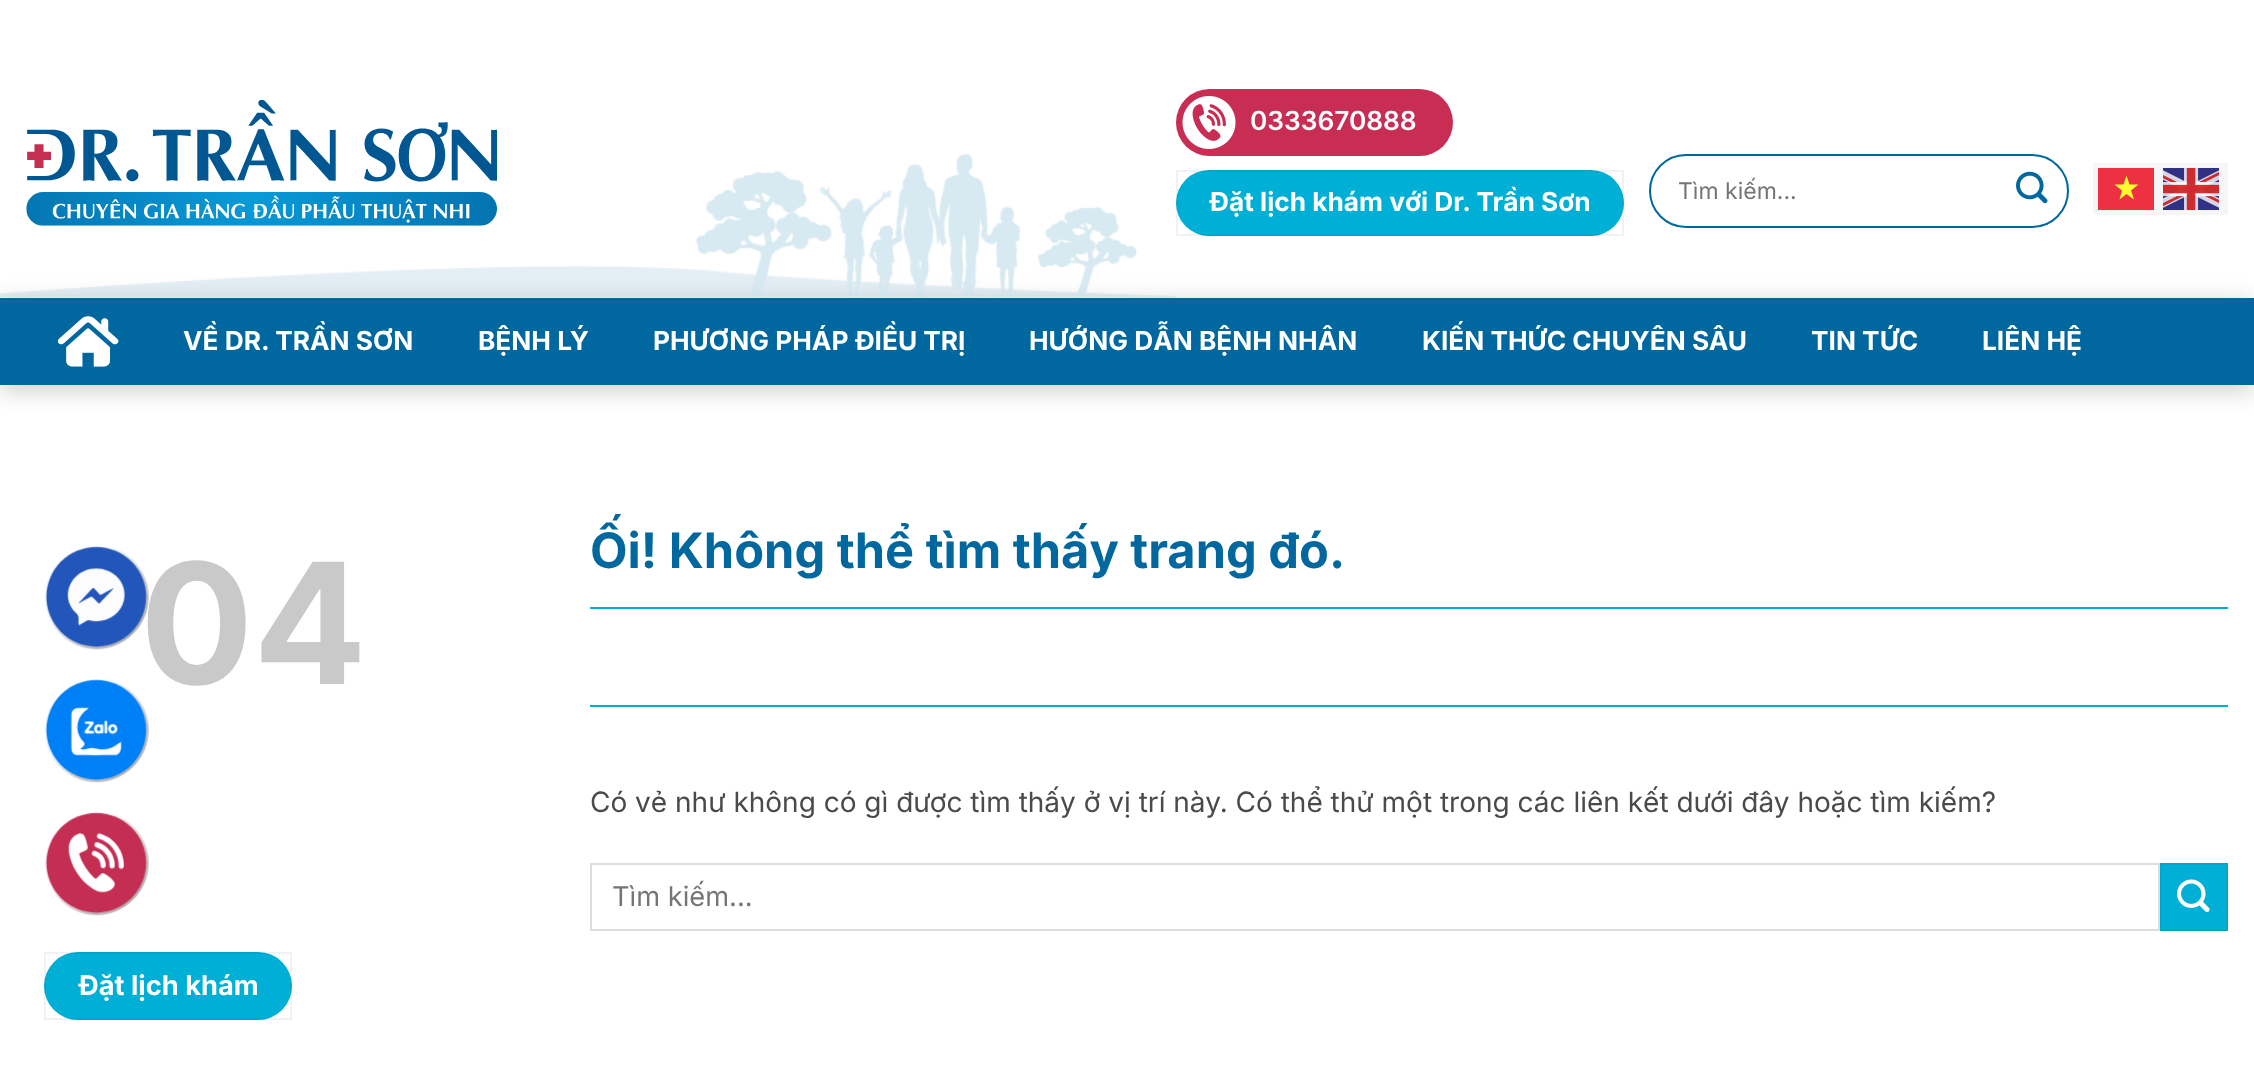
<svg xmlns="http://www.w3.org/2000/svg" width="2254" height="1072">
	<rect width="100%" height="100%" fill="#FFFFFF" />
	<text x="140" y="684" font-family="Inter" font-size="168" font-weight="700" fill="#C9C9C9">04</text>
	<image x="45" y="546" width="104" height="104" href="assets/img1.png" />
	<image x="45" y="679" width="104" height="104" href="assets/img2.png" />
	<image x="45" y="812" width="104" height="104" href="assets/img3.png" />
	<rect x="0" y="303" width="2254" height="87" fill="#000000" fill-opacity="0.2" filter="blur(12px)" />
	<image x="0" y="153" width="1176" height="145" href="assets/img4.png" />
	<image x="26" y="100" width="471" height="126" href="assets/img5.png" />
	<rect x="1176" y="89" width="277" height="67" rx="33.5" fill="#C82D53" />
	<image x="1182" y="96" width="54" height="53" href="assets/img6.png" />
	<text x="1250" y="130" font-family="Inter" font-size="26.25" font-weight="600" fill="#FFFFFF">0333670888</text>
	<rect x="1176" y="170" width="448" height="66" rx="33" fill="#00AFD5" />
	<rect x="1177" y="171" width="446" height="64" fill="none" stroke="#000000" stroke-opacity="0.05" stroke-width="2" />
	<text x="1209" y="211" font-family="Inter" font-size="26.25" font-weight="700" fill="#FFFFFF">Đặt lịch khám với Dr. Trần Sơn</text>
	<rect x="1650" y="155" width="418" height="72" rx="36" fill="none" stroke="#00679F" stroke-width="2" />
	<text x="1678" y="199" font-family="Inter" font-size="23" fill="#757575">Tìm kiếm...</text>
	<image x="2016" y="171" width="32" height="33" href="assets/img7.png" />
	<rect x="2093" y="163" width="135" height="52" fill="#F6F6F6" />
	<rect x="2098" y="168" width="56" height="42" fill="#EE3142" />
	<path d="M2134 199.5L2126.5 194L2119.5 199.5L2122 190.5L2114.5 184.5H2123.5L2126.5 175.5L2129.5 184.5H2138.5L2131 190.5Z" fill="#FDFD31" fill-rule="evenodd" />
	<image x="2163" y="168" width="56" height="42" href="assets/img8.png" />
	<rect x="0" y="298" width="2254" height="87" fill="#00679F" />
	<rect x="26" y="298" width="2202" height="2" fill="#076496" />
	<image x="58" y="316" width="61" height="51" href="assets/img9.png" />
	<g font-family="Inter" font-size="26.25" font-weight="700" fill="#FFFFFF">
		<text x="183" y="350">VỀ DR. TRẦN SƠN</text>
		<text x="478" y="350">BỆNH LÝ</text>
		<text x="653" y="350">PHƯƠNG PHÁP ĐIỀU TRỊ</text>
		<text x="1029" y="350">HƯỚNG DẪN BỆNH NHÂN</text>
		<text x="1422" y="350">KIẾN THỨC CHUYÊN SÂU</text>
		<text x="1811" y="350">TIN TỨC</text>
		<text x="1982" y="350">LIÊN HỆ</text>
	</g>
	<rect x="590" y="705" width="1638" height="2" fill="#00AFD5" />
	<rect x="590" y="607" width="1638" height="2" fill="#00AFD5" />
	<text x="590" y="568" font-family="Inter" font-size="48.75" font-weight="700" fill="#00679F">Ối! Không thể tìm thấy trang đó.</text>
	<text x="590" y="812" font-family="Inter" font-size="28" fill="#4A4A4A">Có vẻ như không có gì được tìm thấy ở vị trí này. Có thể thử một trong các liên kết dưới đây hoặc tìm kiếm?</text>
	<rect x="591" y="864" width="1568" height="66" fill="none" stroke="#DDDDDD" stroke-width="2" />
	<text x="612" y="906" font-family="Inter" font-size="27.25" fill="#757575">Tìm kiếm...</text>
	<rect x="2161" y="864" width="66" height="66" fill="#00AFD5" stroke="#00A6CA" stroke-width="2" />
	<image x="2177" y="879" width="33" height="33" href="assets/img10.png" />
	<rect x="44" y="952" width="248" height="68" rx="34" fill="#00AFD5" />
	<rect x="45" y="953" width="246" height="66" fill="none" stroke="#000000" stroke-opacity="0.05" stroke-width="2" />
	<text x="78" y="995" font-family="Inter" font-size="27.25" font-weight="700" fill="#FFFFFF">Đặt lịch khám</text>
</svg>
